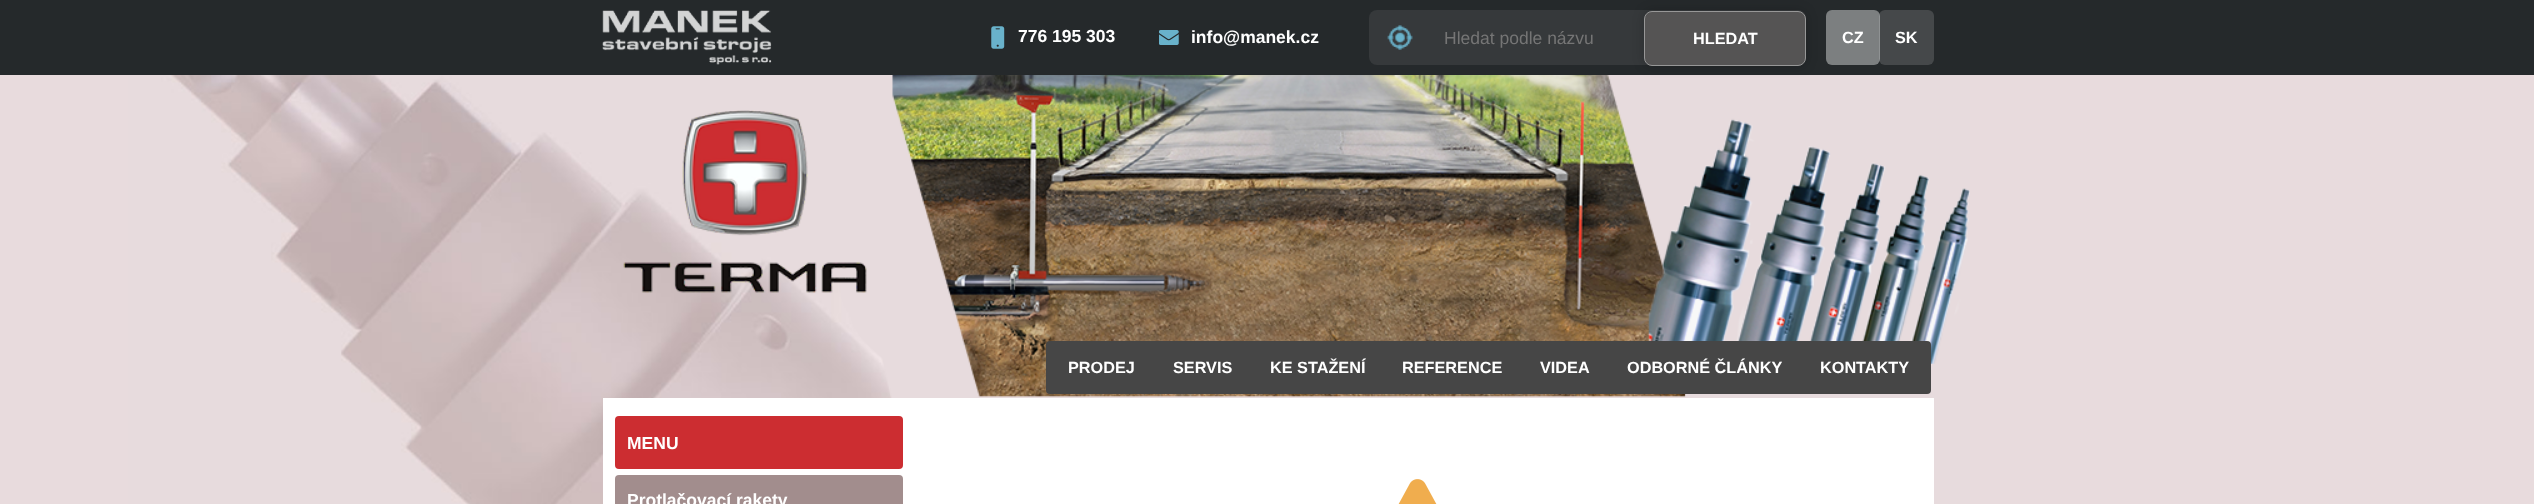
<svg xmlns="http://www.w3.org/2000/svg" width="2534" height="504">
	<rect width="100%" height="100%" fill="#E8DBDD" />
	<image x="128" y="75" width="1842" height="429" href="assets/img1.png" />
	<rect x="0" y="0" width="2534" height="75" fill="#25292B" />
	<image x="602" y="10" width="170" height="55" href="assets/img2.png" />
	<image x="991" y="26" width="14" height="23" href="assets/img3.png" />
	<text x="1018" y="42" font-family="Liberation Sans" font-size="17.5" font-weight="700" fill="#FFFFFF">776 195 303</text>
	<image x="1159" y="30" width="20" height="15" href="assets/img4.png" />
	<text x="1191" y="43" font-family="Liberation Sans" font-size="17.5" font-weight="700" fill="#FFFFFF">info@manek.cz</text>
	<rect x="1369" y="10" width="437" height="55" rx="8" fill="#36393B" />
	<image x="1387" y="25" width="26" height="25" href="assets/img5.png" />
	<image x="1387" y="25" width="26" height="25" href="assets/img6.png" />
	<text x="1444" y="44" font-family="Liberation Sans" font-size="17.5" fill="#757575">Hledat podle názvu</text>
	<rect x="1644" y="11" width="162" height="55" rx="8" fill="#000000" fill-opacity="0.2" filter="blur(6px)" />
	<rect x="1644.5" y="11.5" width="161" height="54" rx="7.5" fill="#555454" stroke="#979797" />
	<text x="1693" y="44" font-family="Liberation Sans" font-size="16.25" font-weight="700" fill="#FFFFFF">HLEDAT</text>
	<rect x="1826" y="10" width="54" height="55" rx="6" fill="#7C7F80" />
	<text x="1842" y="43" font-family="Liberation Sans" font-size="16.25" font-weight="700" fill="#FFFFFF">CZ</text>
	<rect x="1879" y="10" width="55" height="55" rx="6" fill="#FFFFFF" fill-opacity="0.15" />
	<text x="1895" y="43" font-family="Liberation Sans" font-size="16.25" font-weight="700" fill="#FFFFFF">SK</text>
	<image x="623" y="110" width="244" height="183" href="assets/img7.png" />
	<rect x="1046" y="341" width="885" height="53" rx="4" fill="#464646" />
	<g font-family="Liberation Sans" font-size="16.25" font-weight="700" fill="#FFFFFF">
		<text x="1068" y="373">PRODEJ</text>
		<text x="1173" y="373">SERVIS</text>
		<text x="1270" y="373">KE STAŽENÍ</text>
		<text x="1402" y="373">REFERENCE</text>
		<text x="1540" y="373">VIDEA</text>
		<text x="1627" y="373">ODBORNÉ ČLÁNKY</text>
		<text x="1820" y="373">KONTAKTY</text>
	</g>
	<rect x="603" y="398" width="1331" height="106" fill="#FFFFFF" />
	<image x="1398" y="479" width="39" height="25" href="assets/img8.png" />
	<rect x="615" y="416" width="288" height="53" rx="4" fill="#CC2D31" />
	<text x="627" y="449" font-family="Liberation Sans" font-size="17.5" font-weight="700" fill="#FFFFFF">MENU</text>
	<rect x="615" y="475" width="288" height="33" rx="4" fill="#A28D8D" />
	<text x="627" y="506" font-family="Liberation Sans" font-size="17.5" font-weight="700" fill="#FFFFFF">Protlačovací rakety</text>
</svg>
